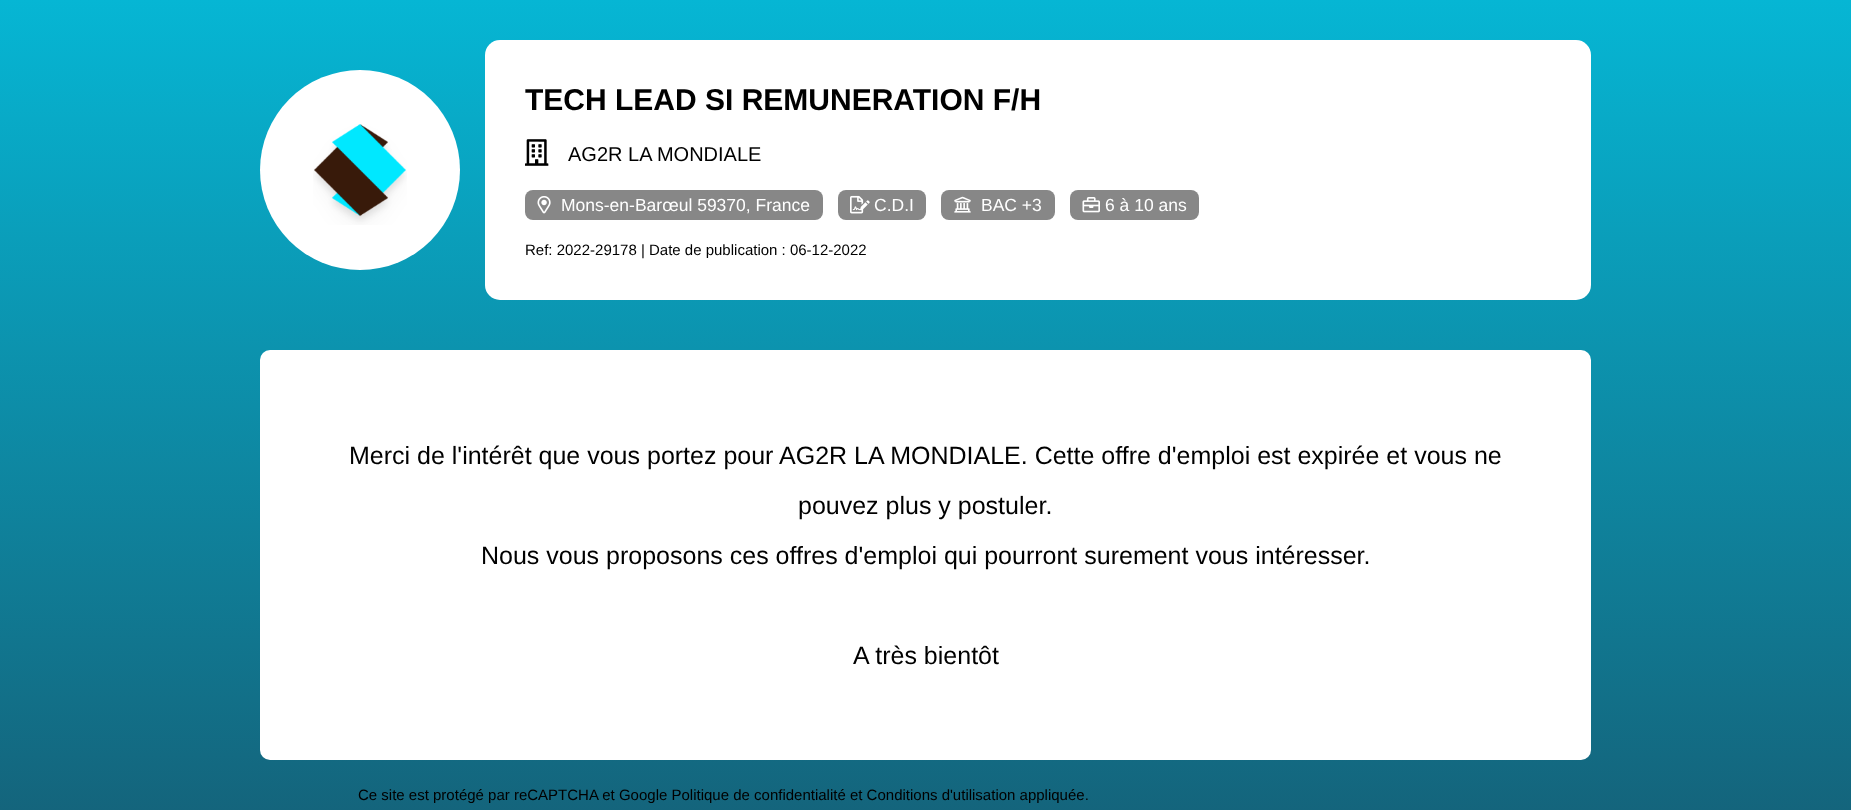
<svg xmlns="http://www.w3.org/2000/svg" width="1851" height="810">
	<defs>
		<linearGradient id="g1" gradientUnits="userSpaceOnUse" x1="926" y1="0" x2="926" y2="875"><stop offset="0" stop-color="#06B6D4" /><stop offset="1" stop-color="#155E75" /></linearGradient>
	</defs>
	<rect width="100%" height="100%" fill="#FFFFFF" />
	<rect x="0" y="0" width="1851" height="810" fill="url(#g1)" />
	<circle cx="360" cy="170" r="100" fill="#FFFFFF" />
	<image x="313" y="124" width="94" height="101" href="assets/img1.png" />
	<rect x="485" y="40" width="1106" height="260" rx="15" fill="#FFFFFF" />
	<text x="525" y="110" font-family="Liberation Sans" font-size="30" font-weight="700" fill="#000000">TECH LEAD SI REMUNERATION F/H</text>
	<image x="525" y="139" width="24" height="27" href="assets/img2.png" />
	<text x="568" y="161" font-family="Liberation Sans" font-size="20" fill="#000000">AG2R LA MONDIALE</text>
	<rect x="525" y="190" width="298" height="30" rx="8" fill="#878787" />
	<image x="537" y="196" width="14" height="18" href="assets/img3.png" />
	<text x="561" y="211" font-family="Liberation Sans" font-size="17.5" fill="#FFFFFF">Mons-en-Barœul 59370, France</text>
	<rect x="838" y="190" width="88" height="30" rx="8" fill="#878787" />
	<image x="850" y="195" width="20" height="19" href="assets/img4.png" />
	<text x="874" y="211" font-family="Liberation Sans" font-size="17.5" fill="#FFFFFF">C.D.I</text>
	<rect x="941" y="190" width="114" height="30" rx="8" fill="#878787" />
	<image x="954" y="196" width="17" height="17" href="assets/img5.png" />
	<text x="981" y="211" font-family="Liberation Sans" font-size="17.5" fill="#FFFFFF">BAC +3</text>
	<rect x="1070" y="190" width="129" height="30" rx="8" fill="#878787" />
	<image x="1082" y="197" width="18" height="16" href="assets/img6.png" />
	<text x="1105" y="211" font-family="Liberation Sans" font-size="17.5" fill="#FFFFFF">6 à 10 ans</text>
	<text x="525" y="255" font-family="Liberation Sans" font-size="15" fill="#000000">Ref: 2022-29178 | Date de publication : 06-12-2022</text>
	<rect x="260" y="350" width="1331" height="410" rx="10" fill="#FFFFFF" />
	<g font-family="Liberation Sans" font-size="25" fill="#000000">
		<text x="349" y="464">Merci de l'intérêt que vous portez pour AG2R LA MONDIALE. Cette offre d'emploi est expirée et vous ne</text>
		<text x="798" y="514">pouvez plus y postuler.</text>
		<text x="481" y="564">Nous vous proposons ces offres d'emploi qui pourront surement vous intéresser.</text>
		<text x="853" y="664">A très bientôt</text>
	</g>
	<text x="358" y="800" font-family="Liberation Sans" font-size="15" fill="#000000">Ce site est protégé par reCAPTCHA et Google Politique de confidentialité et Conditions d'utilisation appliquée.</text>
</svg>
